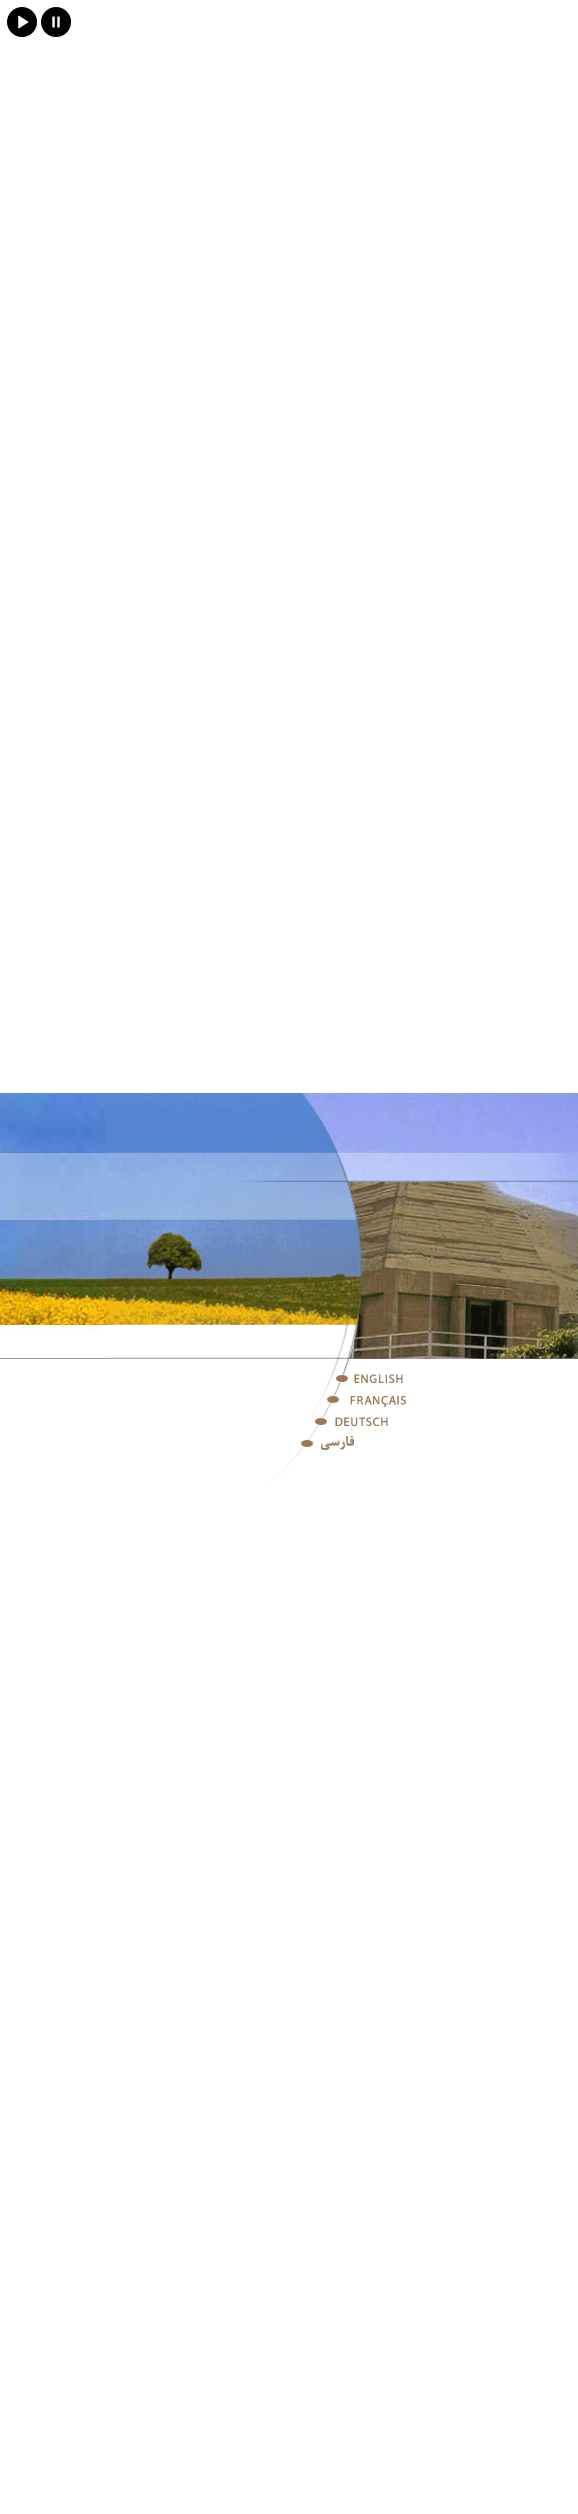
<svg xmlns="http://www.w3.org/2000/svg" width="578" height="2514">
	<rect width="100%" height="100%" fill="#FFFFFF" />
	<image x="7" y="7" width="30" height="30" href="assets/img1.png" />
	<image x="41" y="7" width="30" height="30" href="assets/img2.png" />
	<image x="0" y="1333" width="106" height="26" href="assets/img3.png" />
	<image x="0" y="1093" width="106" height="240" href="assets/img4.png" />
	<image x="106" y="1093" width="472" height="266" href="assets/img5.png" />
	<image x="269" y="1359" width="137" height="125" href="assets/img6.png" />
</svg>
